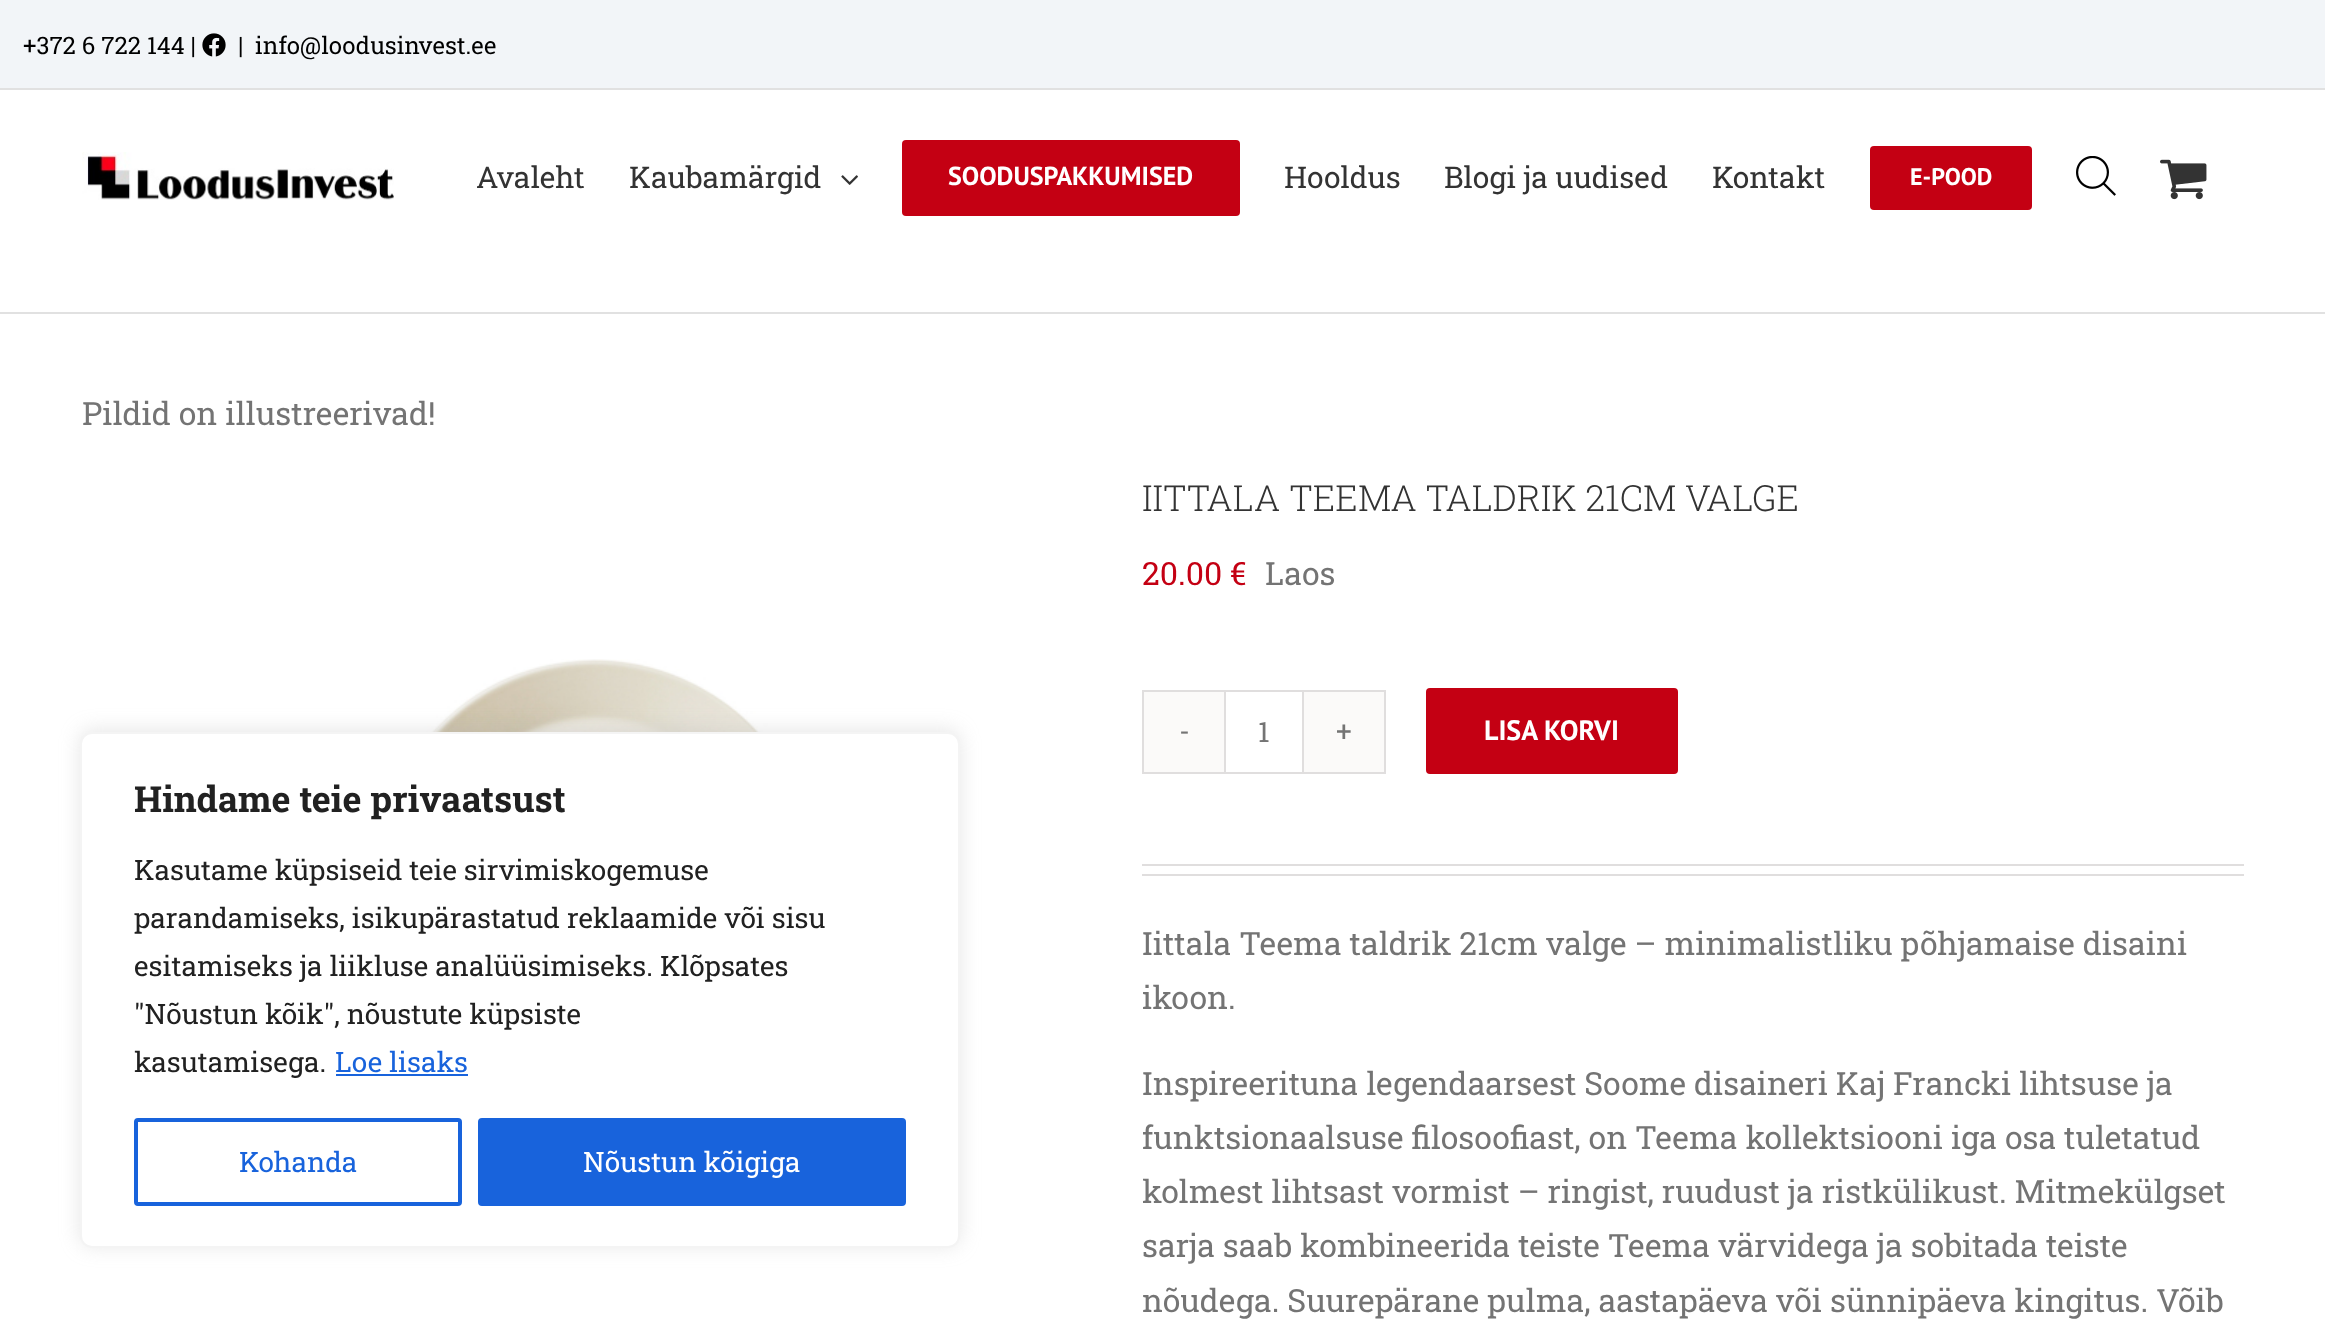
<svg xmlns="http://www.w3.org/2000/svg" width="2325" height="1327">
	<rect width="100%" height="100%" fill="#FFFFFF" />
	<rect x="0" y="0" width="2325" height="88" fill="#F2F5F8" />
	<rect x="0" y="88" width="2325" height="2" fill="#E1E1E1" />
	<text x="23" y="54" font-family="Roboto Slab" font-size="24" fill="#000000">+372 6 722 144 |</text>
	<image x="202" y="33" width="24" height="24" href="assets/img1.png" />
	<g font-family="Roboto Slab" font-size="24" fill="#000000">
		<text x="238" y="54">|</text>
		<text x="255" y="54">info@loodusinvest.ee</text>
	</g>
	<rect x="0" y="312" width="2325" height="2" fill="#E1E1E1" />
	<image x="82" y="152" width="312" height="48" href="assets/img2.png" />
	<g font-family="Roboto Slab" font-size="30" fill="#333333">
		<text x="476" y="188">Avaleht</text>
		<text x="629" y="188">Kaubamärgid</text>
	</g>
	<image x="841" y="175" width="17" height="10" href="assets/img3.png" />
	<rect x="902" y="140" width="338" height="76" rx="4" fill="#C40013" />
	<text x="948" y="185" font-family="PT Sans" font-size="26" font-weight="700" fill="#FFFFFF">SOODUSPAKKUMISED</text>
	<g font-family="Roboto Slab" font-size="30" fill="#333333">
		<text x="1284" y="188">Hooldus</text>
		<text x="1444" y="188">Blogi ja uudised</text>
		<text x="1712" y="188">Kontakt</text>
	</g>
	<rect x="1870" y="146" width="162" height="64" rx="4" fill="#C40013" />
	<text x="1910" y="185" font-family="PT Sans" font-size="24" font-weight="700" fill="#FFFFFF">E-POOD</text>
	<image x="2076" y="156" width="40" height="40" href="assets/img4.png" />
	<image x="2160" y="159" width="47" height="41" href="assets/img5.png" />
	<text x="82" y="425" font-family="Roboto Slab" font-size="32" fill="#747474">Pildid on illustreerivad!</text>
	<image x="375" y="659" width="440" height="73" href="assets/img6.png" />
	<text x="1142" y="511" font-family="Roboto Slab" font-size="36" font-weight="300" fill="#333333">IITTALA TEEMA TALDRIK 21CM VALGE</text>
	<text x="1142" y="585" font-family="Roboto Slab" font-size="32" fill="#C40013">20.00 €</text>
	<text x="1265" y="585" font-family="Roboto Slab" font-size="32" fill="#747474">Laos</text>
	<rect x="1143" y="691" width="242" height="82" fill="none" stroke="#E0DEDE" stroke-width="2" />
	<rect x="1144" y="692" width="80" height="80" fill="#FBFAF9" />
	<text x="1179" y="741" font-family="Roboto Slab" font-size="28" fill="#747474">-</text>
	<rect x="1302" y="692" width="2" height="80" fill="#E0DEDE" />
	<rect x="1224" y="692" width="2" height="80" fill="#E0DEDE" />
	<text x="1258" y="742" font-family="Roboto Slab" font-size="28" fill="#747474">1</text>
	<rect x="1304" y="692" width="80" height="80" fill="#FBFAF9" />
	<text x="1336" y="741" font-family="Roboto Slab" font-size="28" fill="#747474">+</text>
	<rect x="1426" y="688" width="252" height="86" rx="4" fill="#C40013" />
	<text x="1484" y="740" font-family="PT Sans" font-size="28" font-weight="700" fill="#FFFFFF">LISA KORVI</text>
	<rect x="1142" y="864" width="1102" height="2" fill="#E0DEDE" />
	<rect x="1142" y="874" width="1102" height="2" fill="#E0DEDE" />
	<g font-family="Roboto Slab" font-size="32" fill="#747474">
		<text x="1142" y="955">Iittala Teema taldrik 21cm valge – minimalistliku põhjamaise disaini</text>
		<text x="1142" y="1009">ikoon.</text>
		<text x="1142" y="1095">Inspireerituna legendaarsest Soome disaineri Kaj Francki lihtsuse ja</text>
		<text x="1142" y="1149">funktsionaalsuse filosoofiast, on Teema kollektsiooni iga osa tuletatud</text>
		<text x="1142" y="1203">kolmest lihtsast vormist – ringist, ruudust ja ristkülikust. Mitmekülgset</text>
		<text x="1142" y="1257">sarja saab kombineerida teiste Teema värvidega ja sobitada teiste</text>
		<text x="1142" y="1312">nõudega. Suurepärane pulma, aastapäeva või sünnipäeva kingitus. Võib</text>
	</g>
	<rect x="80" y="730" width="880" height="516" rx="12" fill="#ACABAB" fill-opacity="0.3" filter="blur(10px)" />
	<rect x="81" y="733" width="878" height="514" rx="11" fill="#FFFFFF" stroke="#F4F4F4" stroke-width="2" />
	<text x="134" y="812" font-family="Roboto Slab" font-size="36" font-weight="700" fill="#212121">Hindame teie privaatsust</text>
	<g font-family="Roboto Slab" font-size="28" fill="#212121">
		<text x="134" y="880">Kasutame küpsiseid teie sirvimiskogemuse</text>
		<text x="134" y="928">parandamiseks, isikupärastatud reklaamide või sisu</text>
		<text x="134" y="976">esitamiseks ja liikluse analüüsimiseks. Klõpsates</text>
		<text x="134" y="1024">"Nõustun kõik", nõustute küpsiste</text>
		<text x="134" y="1072">kasutamisega.</text>
	</g>
	<text x="335" y="1072" font-family="Roboto Slab" font-size="28" fill="#1863DC">Loe lisaks</text>
	<rect x="336" y="1074" width="132" height="2" fill="#1863DC" />
	<rect x="136" y="1120" width="324" height="84" rx="2" fill="none" stroke="#1863DC" stroke-width="4" />
	<text x="239" y="1172" font-family="Roboto Slab" font-size="28" fill="#1863DC">Kohanda</text>
	<rect x="480" y="1120" width="424" height="84" rx="2" fill="#1863DC" stroke="#1863DC" stroke-width="4" />
	<text x="583" y="1172" font-family="Roboto Slab" font-size="28" fill="#FFFFFF">Nõustun kõigiga</text>
</svg>
